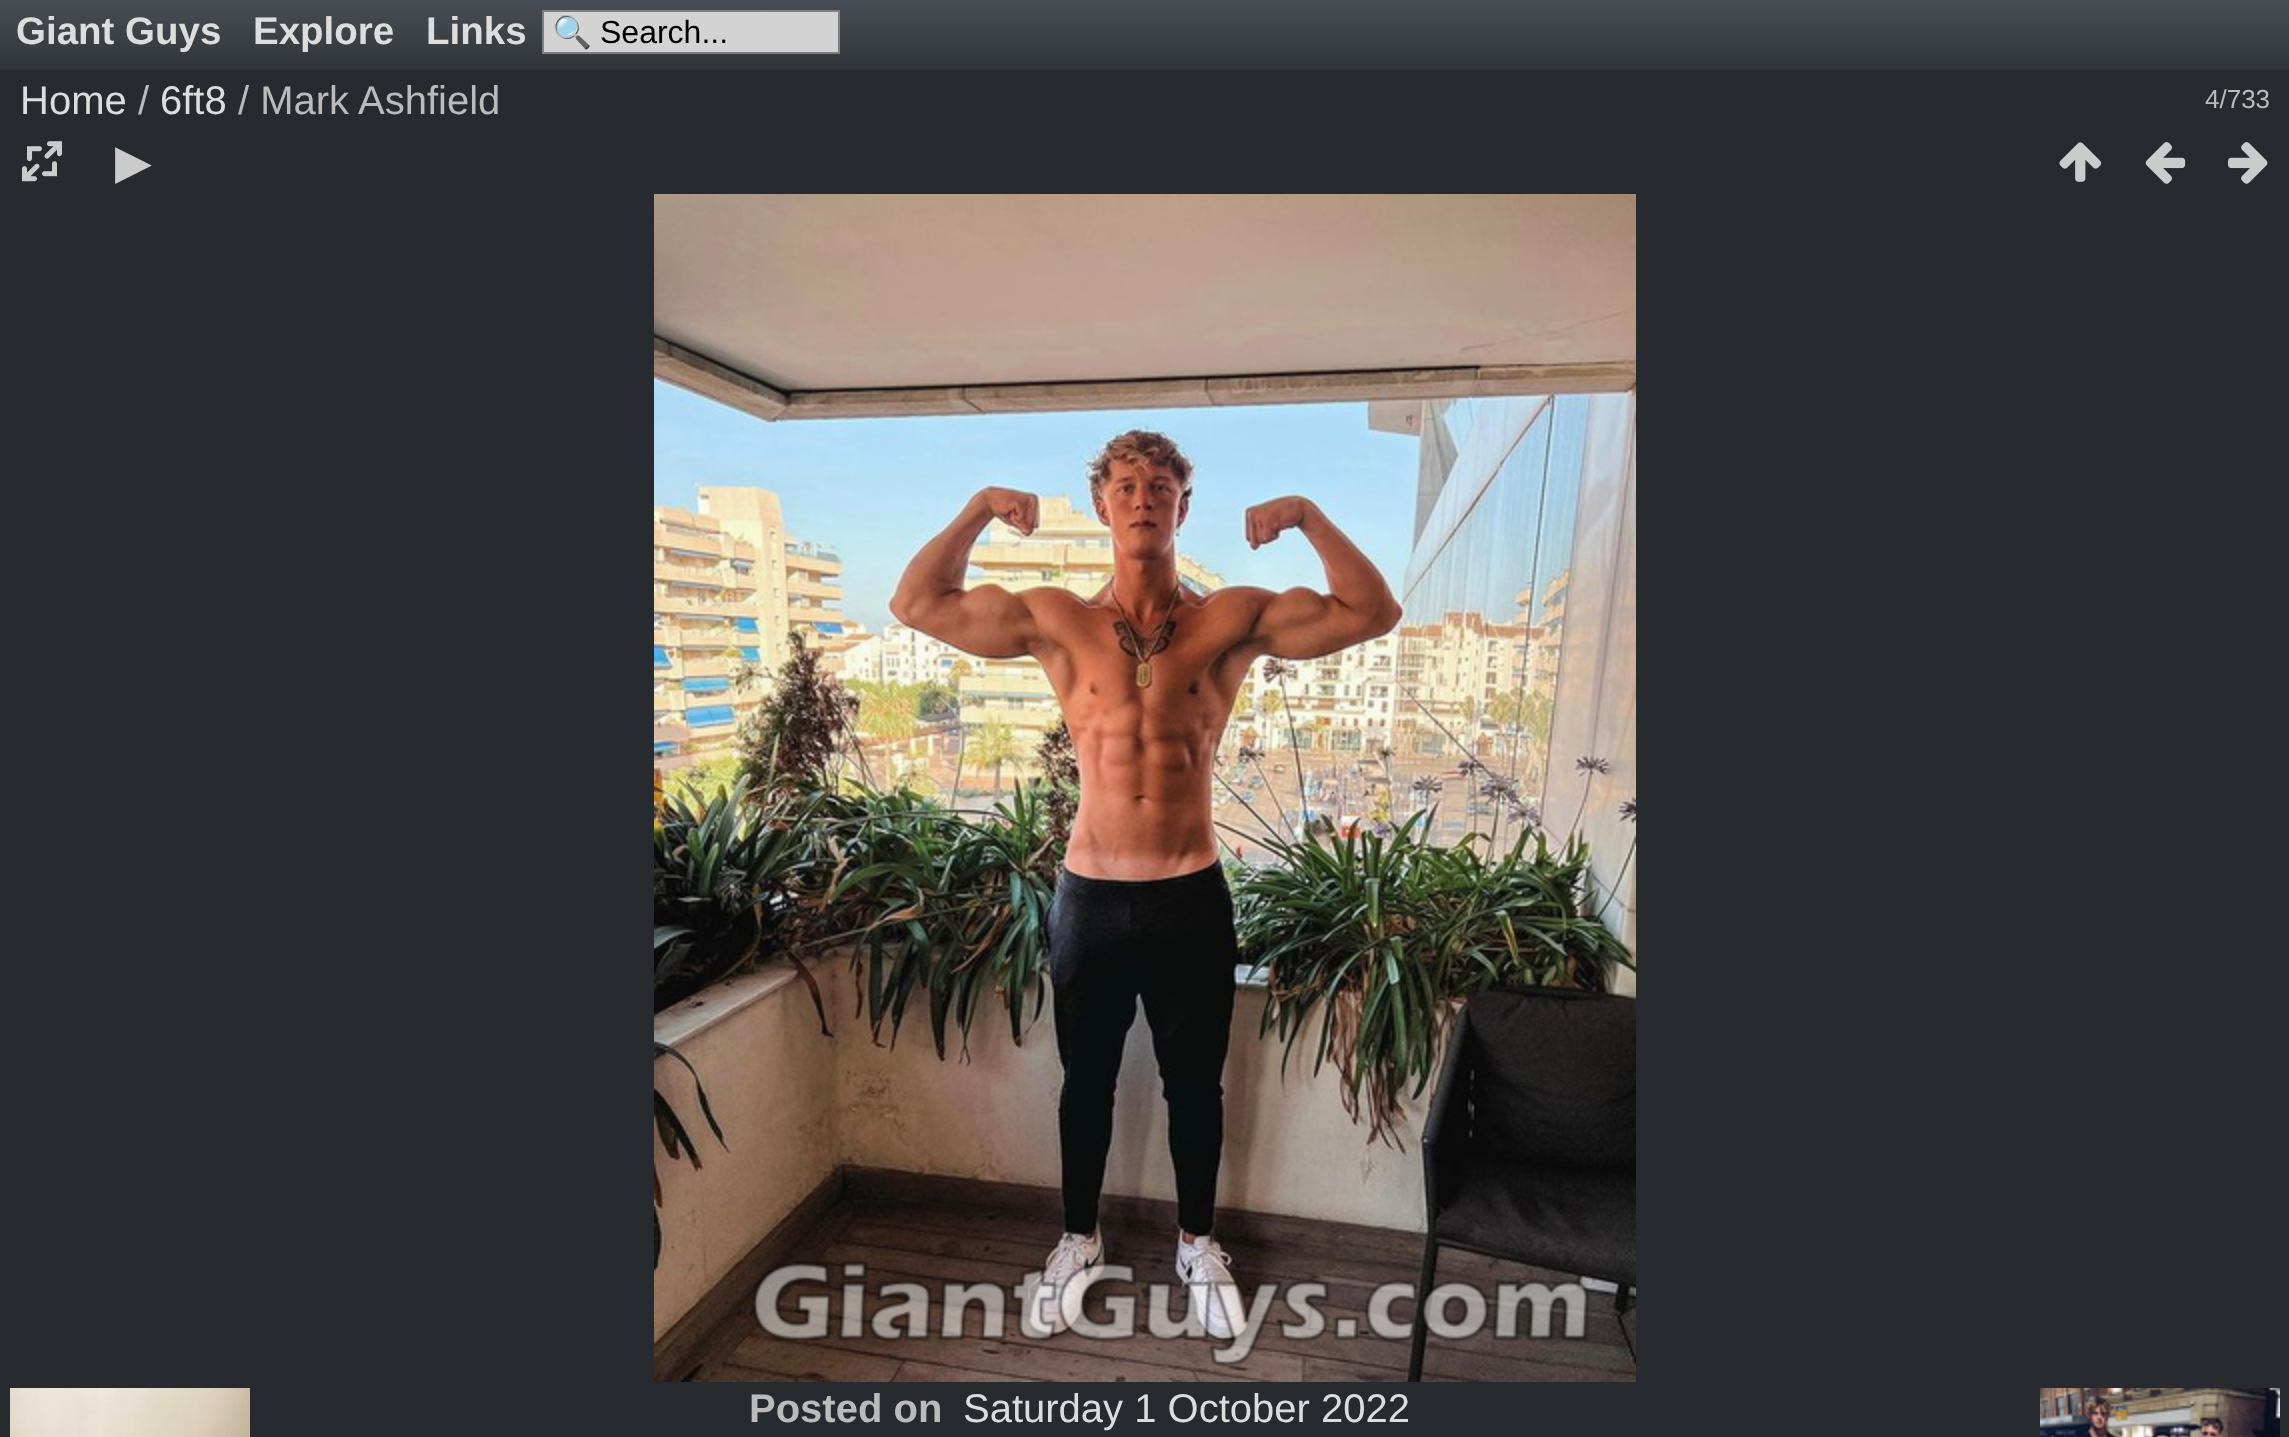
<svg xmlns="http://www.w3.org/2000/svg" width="2289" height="1437">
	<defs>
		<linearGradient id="g1" gradientUnits="userSpaceOnUse" x1="1145" y1="0" x2="1145" y2="70"><stop offset="0" stop-color="#484E55" /><stop offset="0.6" stop-color="#3A3F44" /><stop offset="1" stop-color="#313539" /></linearGradient>
	</defs>
	<rect width="100%" height="100%" fill="#272B30" />
	<rect x="0" y="0" width="2289" height="70" fill="url(#g1)" />
	<g font-family="Liberation Sans" font-size="38.5" font-weight="700" fill="#DDDDDD">
		<text x="16" y="44">Giant Guys</text>
		<text x="253" y="44">Explore</text>
		<text x="426" y="44">Links</text>
	</g>
	<rect x="543" y="11" width="296" height="42" fill="#D3D3D3" stroke="#808080" stroke-width="2" />
	<text x="552" y="43" font-family="Noto Color Emoji" font-size="32" fill="#000000">🔍</text>
	<text x="600" y="43" font-family="Liberation Sans" font-size="32" fill="#000000">Search...</text>
	<text x="20" y="114" font-family="Liberation Sans" font-size="40" fill="#DDDDDD">Home</text>
	<text x="138" y="114" font-family="Liberation Sans" font-size="40" fill="#BBBBBB">/</text>
	<text x="160" y="114" font-family="Liberation Sans" font-size="40" fill="#DDDDDD">6ft8</text>
	<text x="238" y="114" font-family="Liberation Sans" font-size="40" fill="#BBBBBB">/ Mark Ashfield</text>
	<text x="2205" y="108" font-family="Liberation Sans" font-size="26" fill="#BBBBBB">4/733</text>
	<image x="22" y="141" width="41" height="41" href="assets/img1.png" />
	<text x="115" y="178" font-family="DejaVu Sans" font-size="48" fill="#CBCBCC">▶</text>
	<image x="2059" y="142" width="43" height="40" href="assets/img2.png" />
	<image x="2145" y="142" width="41" height="42" href="assets/img3.png" />
	<image x="2228" y="142" width="40" height="42" href="assets/img4.png" />
	<image x="654" y="194" width="982" height="1188" href="assets/img5.png" />
	<image x="10" y="1388" width="240" height="49" href="assets/img6.png" />
	<image x="2040" y="1388" width="240" height="49" href="assets/img7.png" />
	<text x="749" y="1422" font-family="Liberation Sans" font-size="40" font-weight="700" fill="#BBBBBB">Posted on</text>
	<text x="963" y="1422" font-family="Liberation Sans" font-size="40" fill="#DDDDDD">Saturday 1 October 2022</text>
</svg>
